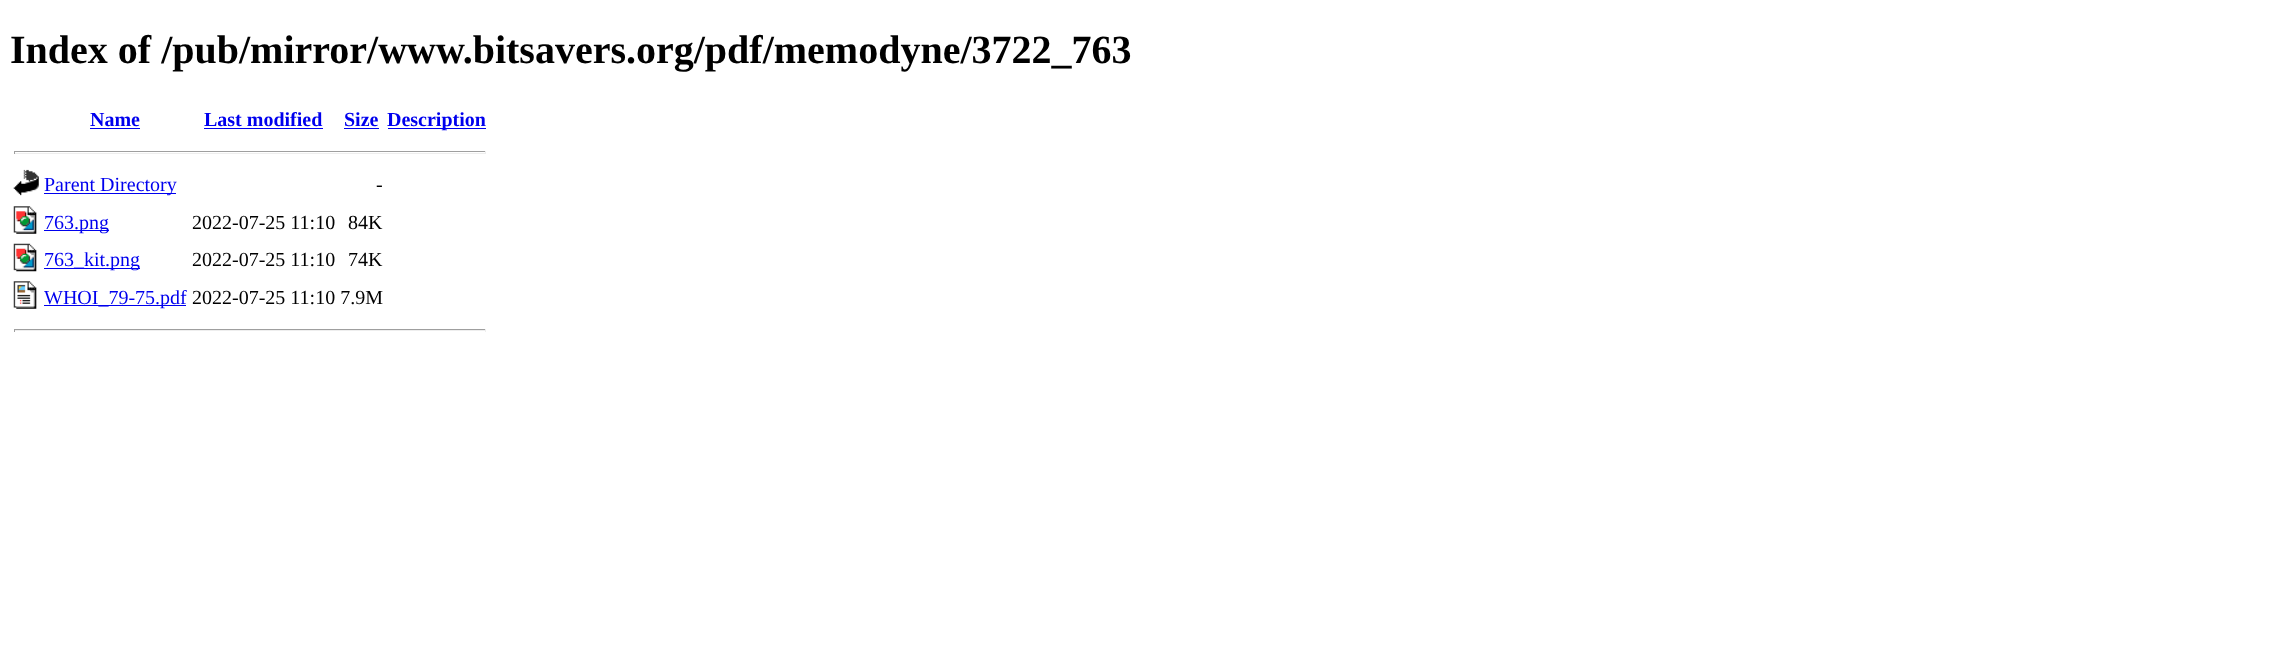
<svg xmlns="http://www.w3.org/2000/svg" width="2275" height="648">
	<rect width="100%" height="100%" fill="#FFFFFF" />
	<text x="10" y="63" font-family="Liberation Serif" font-size="40" font-weight="700" fill="#000000">Index of /pub/mirror/www.bitsavers.org/pdf/memodyne/3722_763</text>
	<text x="90" y="126" font-family="Liberation Serif" font-size="20" font-weight="700" fill="#0000EE">Name</text>
	<rect x="90" y="128" width="50" height="1" fill="#0000EE" />
	<text x="204" y="126" font-family="Liberation Serif" font-size="20" font-weight="700" fill="#0000EE">Last modified</text>
	<rect x="204" y="128" width="119" height="1" fill="#0000EE" />
	<text x="344" y="126" font-family="Liberation Serif" font-size="20" font-weight="700" fill="#0000EE">Size</text>
	<rect x="344" y="128" width="35" height="1" fill="#0000EE" />
	<rect x="388" y="128" width="98" height="1" fill="#0000EE" />
	<text x="387" y="126" font-family="Liberation Serif" font-size="20" font-weight="700" fill="#0000EE">Description</text>
	<rect x="14" y="151" width="472" height="1" fill="#9F9F9F" />
	<rect x="485" y="151" width="1" height="3" fill="#EEEEEE" />
	<rect x="14" y="153" width="472" height="1" fill="#EEEEEE" />
	<rect x="14" y="151" width="1" height="3" fill="#9F9F9F" />
	<image x="13" y="169" width="26" height="27" href="assets/img1.png" />
	<rect x="44" y="193" width="132" height="1" fill="#0000EE" />
	<text x="44" y="191" font-family="Liberation Serif" font-size="20" fill="#0000EE">Parent Directory</text>
	<text x="376" y="191" font-family="Liberation Serif" font-size="20" fill="#000000">-</text>
	<image x="13" y="206" width="24" height="28" href="assets/img2.png" />
	<rect x="44" y="230" width="65" height="1" fill="#0000EE" />
	<text x="44" y="229" font-family="Liberation Serif" font-size="20" fill="#0000EE">763.png</text>
	<g font-family="Liberation Serif" font-size="20" fill="#000000">
		<text x="192" y="229">2022-07-25 11:10</text>
		<text x="348" y="229">84K</text>
	</g>
	<image x="13" y="243" width="24" height="29" href="assets/img3.png" />
	<rect x="44" y="268" width="96" height="1" fill="#0000EE" />
	<text x="44" y="266" font-family="Liberation Serif" font-size="20" fill="#0000EE">763_kit.png</text>
	<g font-family="Liberation Serif" font-size="20" fill="#000000">
		<text x="192" y="266">2022-07-25 11:10</text>
		<text x="348" y="266">74K</text>
	</g>
	<image x="13" y="281" width="24" height="28" href="assets/img4.png" />
	<rect x="44" y="305" width="142" height="1" fill="#0000EE" />
	<text x="44" y="304" font-family="Liberation Serif" font-size="20" fill="#0000EE">WHOI_79-75.pdf</text>
	<text x="192" y="304" font-family="Liberation Serif" font-size="20" fill="#000000">2022-07-25 11:10 7.9M</text>
	<rect x="14" y="329" width="472" height="1" fill="#9F9F9F" />
	<rect x="485" y="329" width="1" height="3" fill="#EEEEEE" />
	<rect x="14" y="330" width="472" height="1" fill="#EEEEEE" />
	<rect x="14" y="329" width="1" height="3" fill="#9F9F9F" />
</svg>
